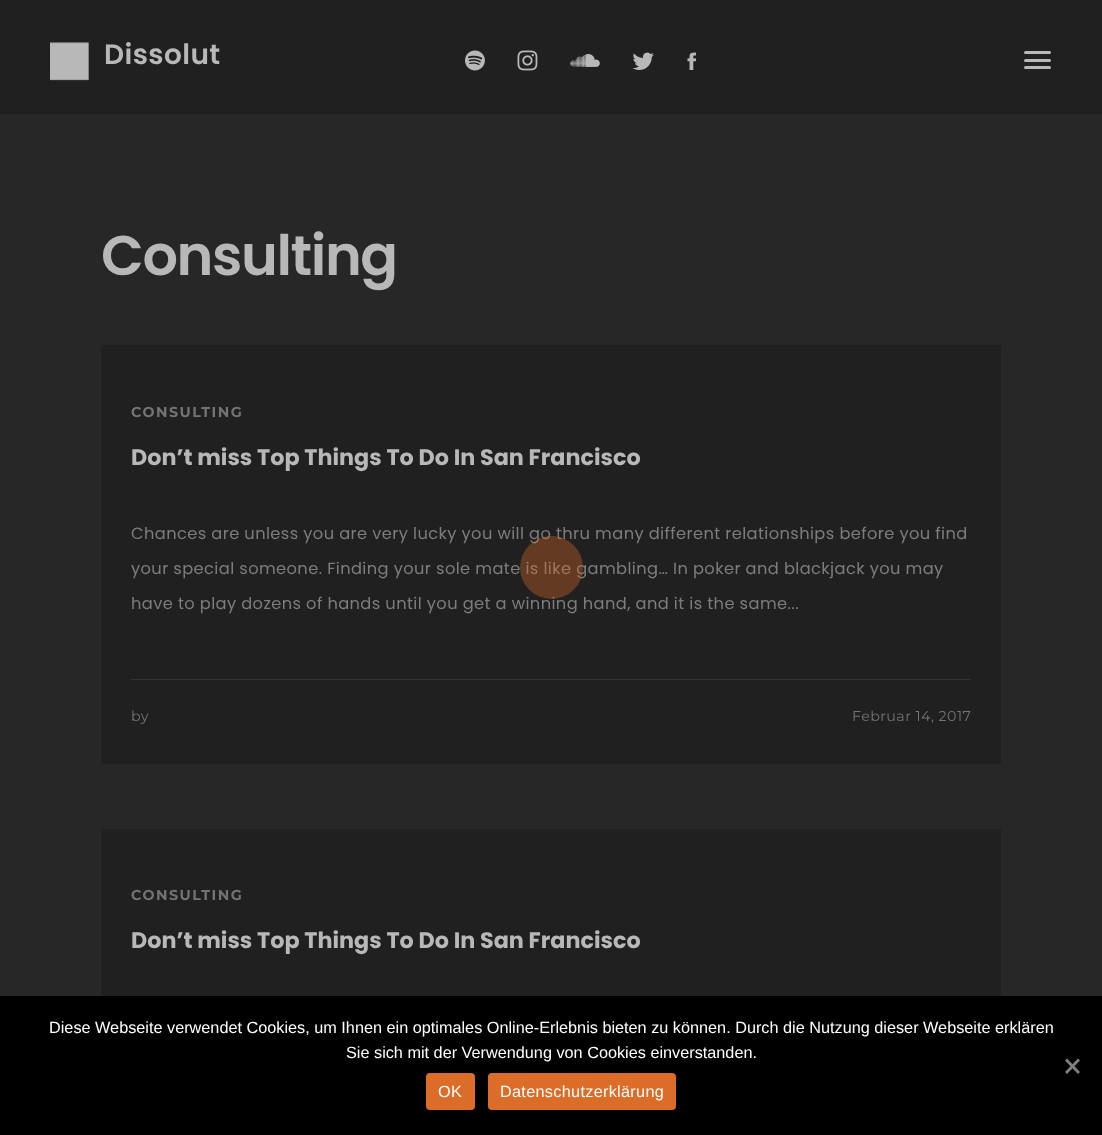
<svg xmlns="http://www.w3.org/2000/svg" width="1102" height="1135">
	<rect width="100%" height="100%" fill="#272727" />
	<rect x="0" y="0" width="1102" height="114" fill="#202020" />
	<image x="50" y="42" width="39" height="39" href="assets/img1.png" />
	<text x="104" y="64" font-family="Poppins" font-size="28" font-weight="600" letter-spacing="0.4" fill="#B8B8B8">Dissolut</text>
	<image x="465" y="50" width="20" height="21" href="assets/img2.png" />
	<image x="517" y="50" width="21" height="21" href="assets/img3.png" />
	<image x="570" y="54" width="30" height="13" href="assets/img4.png" />
	<image x="632" y="52" width="22" height="18" href="assets/img5.png" />
	<image x="687" y="52" width="9" height="18" href="assets/img6.png" />
	<rect x="1024" y="51" width="27" height="3" rx="1.5" fill="#B8B8B8" />
	<rect x="1024" y="59" width="27" height="3" rx="1.5" fill="#B8B8B8" />
	<rect x="1024" y="66" width="27" height="3" rx="1.5" fill="#B8B8B8" />
	<text x="101" y="275" font-family="Poppins" font-size="55.75" font-weight="600" letter-spacing="-1.4" fill="#B8B8B8">Consulting</text>
	<rect x="101" y="345" width="900" height="419" fill="#202020" />
	<text x="131" y="417" font-family="Montserrat" font-size="14.25" font-weight="700" letter-spacing="1.5" fill="#747474">CONSULTING</text>
	<text x="131" y="465" font-family="Poppins" font-size="22.3" font-weight="700" fill="#B8B8B8">Don’t miss Top Things To Do In San Francisco</text>
	<g font-family="Poppins" font-size="16.25" letter-spacing="0.4" fill="#7D7D7D">
		<text x="131" y="539">Chances are unless you are very lucky you will go thru many different relationships before you find</text>
		<text x="131" y="574">your special someone. Finding your sole mate is like gambling… In poker and blackjack you may</text>
		<text x="131" y="609">have to play dozens of hands until you get a winning hand, and it is the same...</text>
	</g>
	<rect x="131" y="679" width="840" height="1" fill="#353535" />
	<g font-family="Montserrat" font-size="14.25" letter-spacing="0.4" fill="#747474">
		<text x="131" y="721">by</text>
		<text x="852" y="721">Februar 14, 2017</text>
	</g>
	<rect x="101" y="829" width="900" height="167" fill="#202020" />
	<text x="131" y="900" font-family="Montserrat" font-size="14.25" font-weight="700" letter-spacing="1.5" fill="#747474">CONSULTING</text>
	<text x="131" y="948" font-family="Poppins" font-size="22.3" font-weight="700" fill="#B8B8B8">Don’t miss Top Things To Do In San Francisco</text>
	<circle cx="551.5" cy="567.5" r="31.5" fill="#DB6D29" fill-opacity="0.2" />
	<circle cx="551.5" cy="567.5" r="31.5" fill="#DB6D29" fill-opacity="0.2" />
	<rect x="0" y="996" width="1102" height="139" fill="#000000" />
	<g font-family="Liberation Sans" font-size="16.25" fill="#FFFFFF">
		<text x="49" y="1033">Diese Webseite verwendet Cookies, um Ihnen ein optimales Online-Erlebnis bieten zu können. Durch die Nutzung dieser Webseite erklären</text>
		<text x="346" y="1058">Sie sich mit der Verwendung von Cookies einverstanden.</text>
	</g>
	<path d="M1078 1058.5L1080 1060.5L1067 1074L1065 1072Z" fill="#808080" />
	<path d="M1065 1060.5L1067 1058.5L1080 1072L1078 1074Z" fill="#808080" />
	<rect x="426" y="1073" width="49" height="37" rx="4" fill="#DB6D29" />
	<text x="438" y="1097" font-family="Liberation Sans" font-size="16.25" letter-spacing="0.3" fill="#FFFFFF">OK</text>
	<rect x="488" y="1073" width="188" height="37" rx="4" fill="#DB6D29" />
	<text x="500" y="1097" font-family="Liberation Sans" font-size="16.25" letter-spacing="0.3" fill="#FFFFFF">Datenschutzerklärung</text>
</svg>
